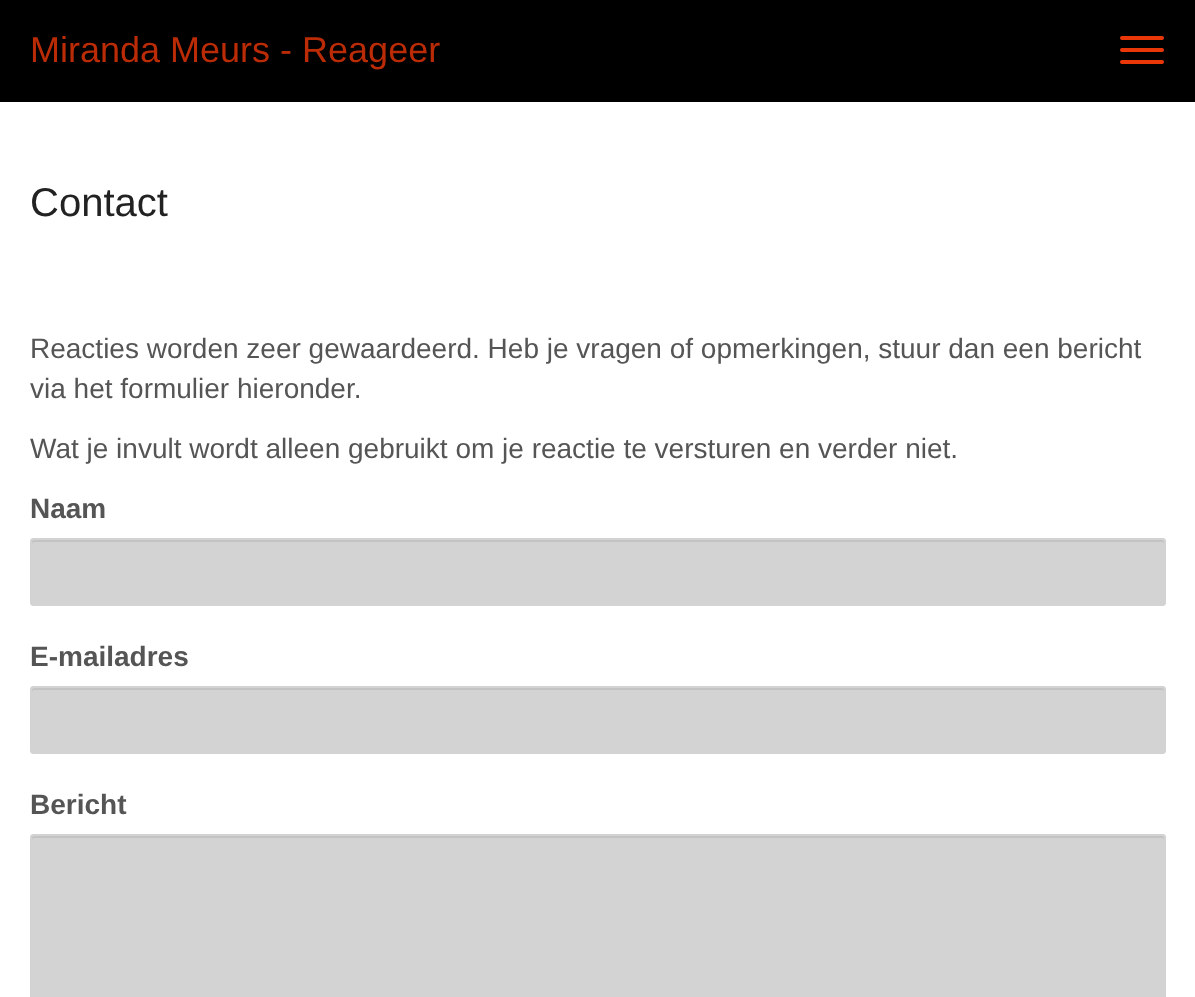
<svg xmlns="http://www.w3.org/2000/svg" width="1195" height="997">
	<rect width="100%" height="100%" fill="#000000" />
	<text x="30" y="62" font-family="Liberation Sans" font-size="36" fill="#BB2C06">Miranda Meurs - Reageer</text>
	<rect x="1120" y="36" width="44" height="4" rx="2" fill="#EA3707" />
	<rect x="1120" y="48" width="44" height="4" rx="2" fill="#EA3707" />
	<rect x="1120" y="60" width="44" height="4" rx="2" fill="#EA3707" />
	<rect x="0" y="102" width="1195" height="895" fill="#FFFFFF" />
	<text x="30" y="216" font-family="Liberation Sans" font-size="40" fill="#222222">Contact</text>
	<g font-family="Liberation Sans" font-size="28" fill="#555555">
		<text x="30" y="358">Reacties worden zeer gewaardeerd. Heb je vragen of opmerkingen, stuur dan een bericht</text>
		<text x="30" y="398">via het formulier hieronder.</text>
		<text x="30" y="458">Wat je invult wordt alleen gebruikt om je reactie te versturen en verder niet.</text>
	</g>
	<text x="30" y="518" font-family="Liberation Sans" font-size="28" font-weight="700" fill="#555555">Naam</text>
	<rect x="30" y="538" width="1136" height="68" rx="4" fill="#D3D3D3" />
	<path d="M34 542H1162C1163 542 1164 543 1164 544C1164 542 1164 540 1162 540H33L32 541V544C32 543 33 542 34 542Z" fill="#C3C3C3" />
	<rect x="31" y="539" width="1134" height="66" rx="3" fill="none" stroke="#D3D3D3" stroke-width="2" />
	<text x="30" y="666" font-family="Liberation Sans" font-size="28" font-weight="700" fill="#555555">E-mailadres</text>
	<rect x="30" y="686" width="1136" height="68" rx="4" fill="#D3D3D3" />
	<path d="M34 690H1162C1163 690 1164 691 1164 692C1164 690 1164 688 1162 688H33L32 689V692C32 691 33 690 34 690Z" fill="#C3C3C3" />
	<rect x="31" y="687" width="1134" height="66" rx="3" fill="none" stroke="#D3D3D3" stroke-width="2" />
	<text x="30" y="814" font-family="Liberation Sans" font-size="28" font-weight="700" fill="#555555">Bericht</text>
	<rect x="30" y="834" width="1136" height="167" rx="4" fill="#D3D3D3" />
	<path d="M34 838H1162C1163 838 1164 839 1164 840C1164 838 1164 836 1162 836H33L32 837V840C32 839 33 838 34 838Z" fill="#C3C3C3" />
	<rect x="31" y="835" width="1134" height="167" rx="3" fill="none" stroke="#D3D3D3" stroke-width="2" />
</svg>
